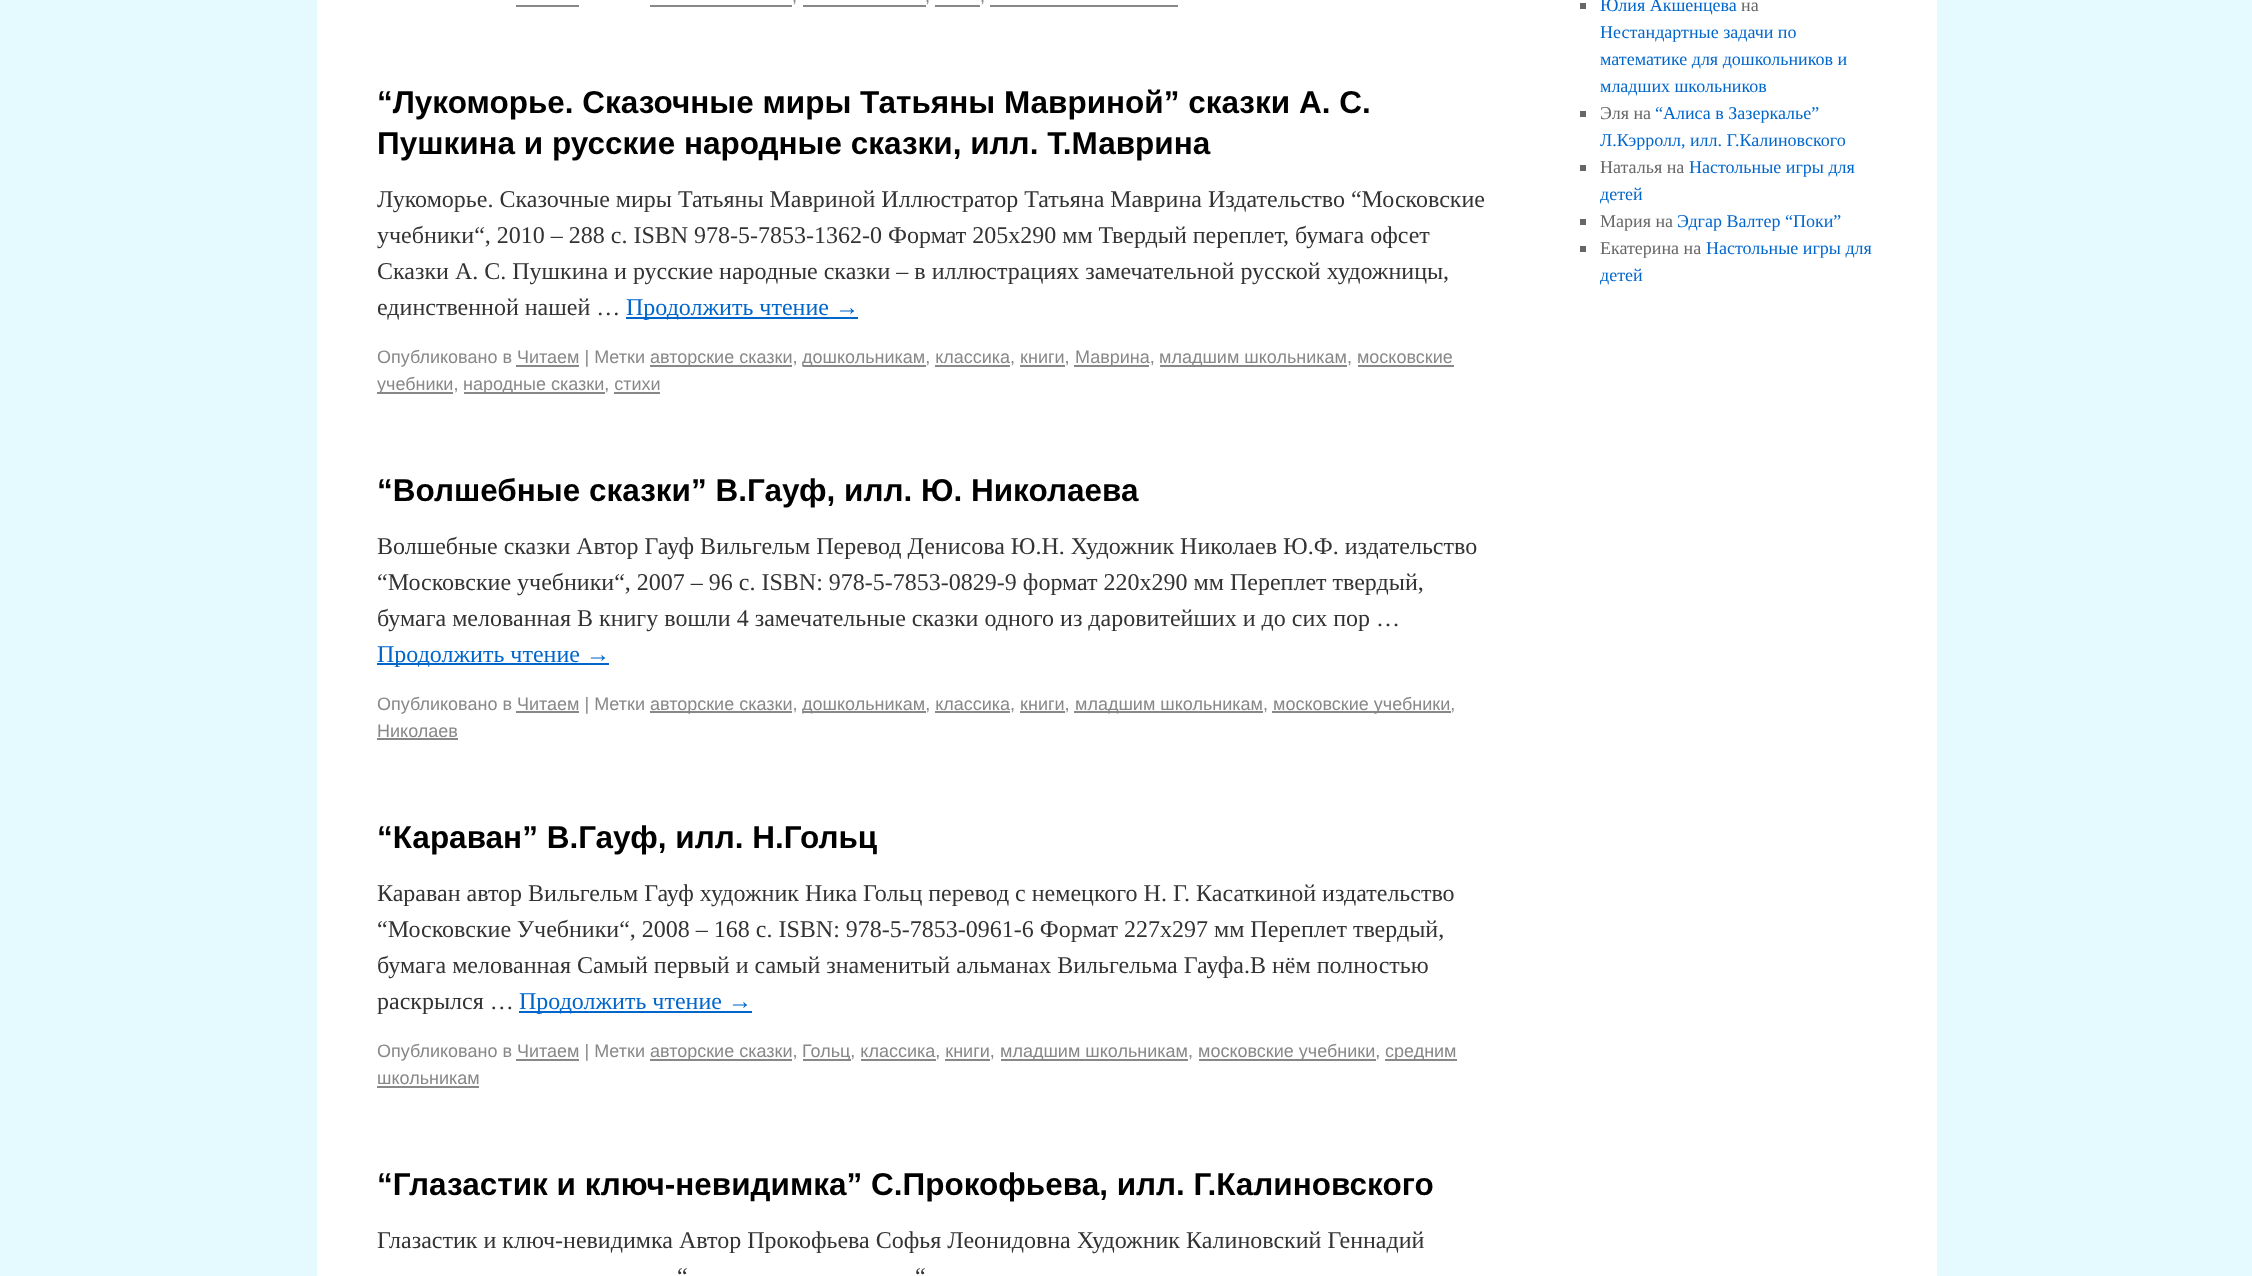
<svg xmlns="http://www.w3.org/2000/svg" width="2252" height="1276">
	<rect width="100%" height="100%" fill="#E5FAFE" />
	<rect x="317" y="0" width="1620" height="1276" fill="#FFFFFF" />
	<text x="792" y="2" font-family="Liberation Sans" font-size="18" fill="#888888">,</text>
	<rect x="650" y="5" width="142" height="2" fill="#888888" />
	<text x="925" y="2" font-family="Liberation Sans" font-size="18" fill="#888888">,</text>
	<rect x="803" y="5" width="123" height="2" fill="#888888" />
	<text x="980" y="2" font-family="Liberation Sans" font-size="18" fill="#888888">,</text>
	<rect x="935" y="5" width="45" height="2" fill="#888888" />
	<rect x="990" y="5" width="188" height="2" fill="#888888" />
	<rect x="516" y="5" width="63" height="2" fill="#888888" />
	<g font-family="Liberation Sans" font-size="31.5" font-weight="700" fill="#000000">
		<text x="377" y="113">“Лукоморье. Сказочные миры Татьяны Мавриной” сказки А. С.</text>
		<text x="377" y="154">Пушкина и русские народные сказки, илл. Т.Маврина</text>
	</g>
	<g font-family="Liberation Serif" font-size="24" fill="#333333">
		<text x="377" y="207">Лукоморье. Сказочные миры Татьяны Мавриной Иллюстратор Татьяна Маврина Издательство “Московские</text>
		<text x="377" y="243">учебники“, 2010 – 288 с. ISBN 978-5-7853-1362-0 Формат 205х290 мм Твердый переплет, бумага офсет</text>
		<text x="377" y="279">Сказки А. С. Пушкина и русские народные сказки – в иллюстрациях замечательной русской художницы,</text>
		<text x="377" y="315">единственной нашей …</text>
	</g>
	<rect x="626" y="317" width="232" height="2" fill="#0066CC" />
	<text x="626" y="315" font-family="Liberation Serif" font-size="24" fill="#0066CC">Продолжить чтение →</text>
	<text x="377" y="363" font-family="Liberation Sans" font-size="18" fill="#888888">Опубликовано в Читаем | Метки</text>
	<rect x="516" y="365" width="63" height="2" fill="#888888" />
	<rect x="650" y="365" width="142" height="2" fill="#888888" />
	<text x="650" y="363" font-family="Liberation Sans" font-size="18" fill="#888888">авторские сказки,</text>
	<rect x="803" y="365" width="123" height="2" fill="#888888" />
	<text x="802" y="363" font-family="Liberation Sans" font-size="18" fill="#888888">дошкольникам, классика, книги,</text>
	<rect x="935" y="365" width="75" height="2" fill="#888888" />
	<rect x="1020" y="365" width="45" height="2" fill="#888888" />
	<rect x="1074" y="365" width="75" height="2" fill="#888888" />
	<text x="1075" y="363" font-family="Liberation Sans" font-size="18" fill="#888888">Маврина,</text>
	<rect x="1160" y="365" width="187" height="2" fill="#888888" />
	<text x="1159" y="363" font-family="Liberation Sans" font-size="18" fill="#888888">младшим школьникам, московские</text>
	<rect x="1358" y="365" width="96" height="2" fill="#888888" />
	<rect x="377" y="392" width="76" height="2" fill="#888888" />
	<text x="377" y="390" font-family="Liberation Sans" font-size="18" fill="#888888">учебники,</text>
	<rect x="464" y="392" width="141" height="2" fill="#888888" />
	<text x="463" y="390" font-family="Liberation Sans" font-size="18" fill="#888888">народные сказки, стихи</text>
	<rect x="614" y="392" width="46" height="2" fill="#888888" />
	<text x="377" y="501" font-family="Liberation Sans" font-size="31.5" font-weight="700" fill="#000000">“Волшебные сказки” В.Гауф, илл. Ю. Николаева</text>
	<g font-family="Liberation Serif" font-size="24" fill="#333333">
		<text x="377" y="554">Волшебные сказки Автор Гауф Вильгельм Перевод Денисова Ю.Н. Художник Николаев Ю.Ф. издательство</text>
		<text x="377" y="590">“Московские учебники“, 2007 – 96 с. ISBN: 978-5-7853-0829-9 формат 220х290 мм Переплет твердый,</text>
		<text x="377" y="626">бумага мелованная В книгу вошли 4 замечательные сказки одного из даровитейших и до сих пор …</text>
	</g>
	<rect x="377" y="663" width="232" height="2" fill="#0066CC" />
	<text x="377" y="662" font-family="Liberation Serif" font-size="24" fill="#0066CC">Продолжить чтение →</text>
	<text x="377" y="710" font-family="Liberation Sans" font-size="18" fill="#888888">Опубликовано в Читаем | Метки</text>
	<rect x="516" y="711" width="63" height="2" fill="#888888" />
	<rect x="650" y="711" width="142" height="2" fill="#888888" />
	<text x="650" y="710" font-family="Liberation Sans" font-size="18" fill="#888888">авторские сказки,</text>
	<rect x="803" y="711" width="123" height="2" fill="#888888" />
	<text x="802" y="710" font-family="Liberation Sans" font-size="18" fill="#888888">дошкольникам, классика, книги,</text>
	<rect x="935" y="711" width="75" height="2" fill="#888888" />
	<rect x="1020" y="711" width="45" height="2" fill="#888888" />
	<rect x="1074" y="711" width="189" height="2" fill="#888888" />
	<text x="1075" y="710" font-family="Liberation Sans" font-size="18" fill="#888888">младшим школьникам,</text>
	<rect x="1272" y="711" width="179" height="2" fill="#888888" />
	<g font-family="Liberation Sans" font-size="18" fill="#888888">
		<text x="1273" y="710">московские учебники,</text>
		<text x="377" y="737">Николаев</text>
	</g>
	<rect x="377" y="738" width="81" height="2" fill="#888888" />
	<text x="377" y="848" font-family="Liberation Sans" font-size="31.5" font-weight="700" fill="#000000">“Караван” В.Гауф, илл. Н.Гольц</text>
	<g font-family="Liberation Serif" font-size="24" fill="#333333">
		<text x="377" y="901">Караван автор Вильгельм Гауф художник Ника Гольц перевод с немецкого Н. Г. Касаткиной издательство</text>
		<text x="377" y="937">“Московские Учебники“, 2008 – 168 с. ISBN: 978-5-7853-0961-6 Формат 227х297 мм Переплет твердый,</text>
		<text x="377" y="973">бумага мелованная Самый первый и самый знаменитый альманах Вильгельма Гауфа.В нём полностью</text>
		<text x="377" y="1009">раскрылся …</text>
	</g>
	<rect x="519" y="1011" width="233" height="2" fill="#0066CC" />
	<text x="519" y="1009" font-family="Liberation Serif" font-size="24" fill="#0066CC">Продолжить чтение →</text>
	<text x="377" y="1057" font-family="Liberation Sans" font-size="18" fill="#888888">Опубликовано в Читаем | Метки</text>
	<rect x="516" y="1059" width="63" height="2" fill="#888888" />
	<rect x="650" y="1059" width="142" height="2" fill="#888888" />
	<text x="650" y="1057" font-family="Liberation Sans" font-size="18" fill="#888888">авторские сказки,</text>
	<rect x="803" y="1059" width="48" height="2" fill="#888888" />
	<text x="802" y="1057" font-family="Liberation Sans" font-size="18" fill="#888888">Гольц, классика, книги,</text>
	<rect x="861" y="1059" width="75" height="2" fill="#888888" />
	<rect x="945" y="1059" width="45" height="2" fill="#888888" />
	<rect x="1001" y="1059" width="187" height="2" fill="#888888" />
	<text x="1000" y="1057" font-family="Liberation Sans" font-size="18" fill="#888888">младшим школьникам,</text>
	<rect x="1199" y="1059" width="177" height="2" fill="#888888" />
	<text x="1198" y="1057" font-family="Liberation Sans" font-size="18" fill="#888888">московские учебники,</text>
	<rect x="1385" y="1059" width="72" height="2" fill="#888888" />
	<g font-family="Liberation Sans" font-size="18" fill="#888888">
		<text x="1385" y="1057">средним</text>
		<text x="377" y="1084">школьникам</text>
	</g>
	<rect x="377" y="1086" width="102" height="2" fill="#888888" />
	<text x="377" y="1195" font-family="Liberation Sans" font-size="31.5" font-weight="700" fill="#000000">“Глазастик и ключ-невидимка” С.Прокофьева, илл. Г.Калиновского</text>
	<g font-family="Liberation Serif" font-size="24" fill="#333333">
		<text x="377" y="1248">Глазастик и ключ-невидимка Автор Прокофьева Софья Леонидовна Художник Калиновский Геннадий</text>
		<text x="677" y="1284">“</text>
		<text x="915" y="1284">“</text>
	</g>
	<rect x="1580" y="3" width="6" height="6" fill="#666666" />
	<text x="1600" y="11" font-family="Liberation Serif" font-size="18" fill="#0066CC">Юлия Акшенцева</text>
	<text x="1741" y="11" font-family="Liberation Serif" font-size="18" fill="#666666">на</text>
	<g font-family="Liberation Serif" font-size="18" fill="#0066CC">
		<text x="1600" y="38">Нестандартные задачи по</text>
		<text x="1600" y="65">математике для дошкольников и</text>
		<text x="1600" y="92">младших школьников</text>
	</g>
	<rect x="1580" y="111" width="6" height="6" fill="#666666" />
	<text x="1600" y="119" font-family="Liberation Serif" font-size="18" fill="#666666">Эля на</text>
	<g font-family="Liberation Serif" font-size="18" fill="#0066CC">
		<text x="1655" y="119">“Алиса в Зазеркалье”</text>
		<text x="1600" y="146">Л.Кэрролл, илл. Г.Калиновского</text>
	</g>
	<rect x="1580" y="165" width="6" height="6" fill="#666666" />
	<text x="1600" y="173" font-family="Liberation Serif" font-size="18" fill="#666666">Наталья на</text>
	<g font-family="Liberation Serif" font-size="18" fill="#0066CC">
		<text x="1689" y="173">Настольные игры для</text>
		<text x="1600" y="200">детей</text>
	</g>
	<rect x="1580" y="219" width="6" height="6" fill="#666666" />
	<text x="1600" y="227" font-family="Liberation Serif" font-size="18" fill="#666666">Мария на</text>
	<text x="1677" y="227" font-family="Liberation Serif" font-size="18" fill="#0066CC">Эдгар Валтер “Поки”</text>
	<rect x="1580" y="246" width="6" height="6" fill="#666666" />
	<text x="1600" y="254" font-family="Liberation Serif" font-size="18" fill="#666666">Екатерина на</text>
	<g font-family="Liberation Serif" font-size="18" fill="#0066CC">
		<text x="1706" y="254">Настольные игры для</text>
		<text x="1600" y="281">детей</text>
	</g>
</svg>
